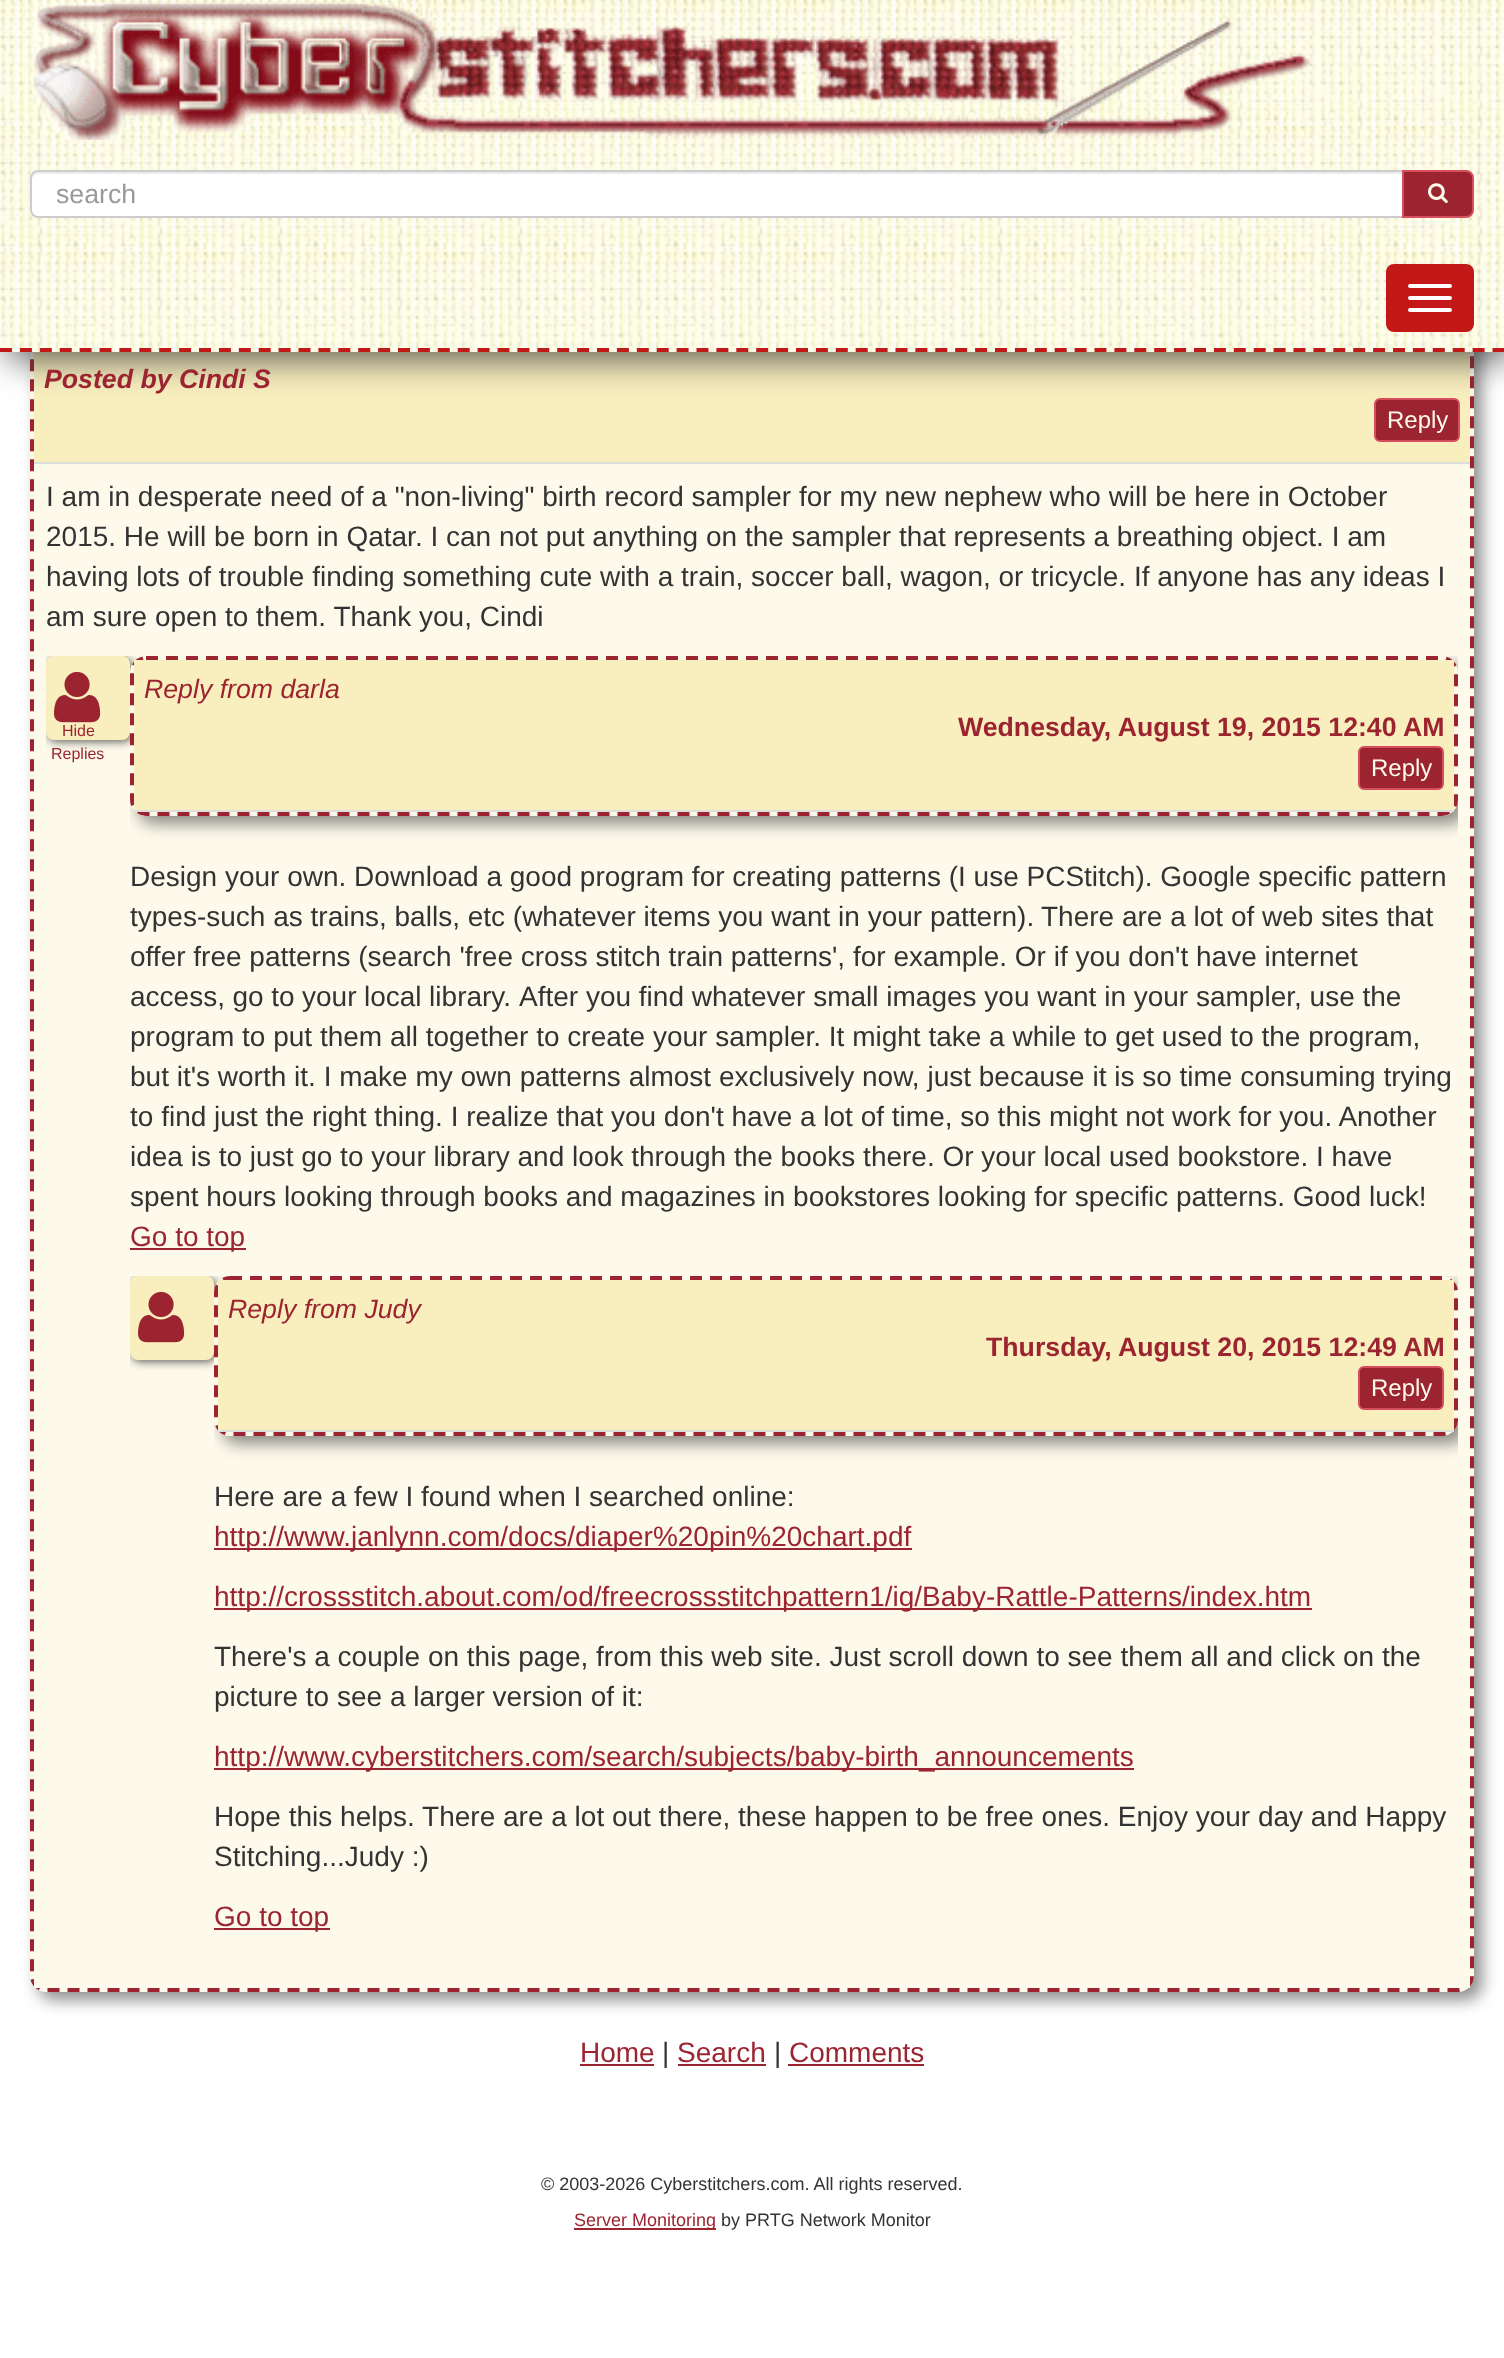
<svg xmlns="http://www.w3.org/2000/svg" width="1504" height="2358">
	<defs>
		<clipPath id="clip1"><rect x="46" y="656" width="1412" height="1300" /></clipPath>
		<clipPath id="clip2"><rect x="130" y="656" width="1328" height="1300" /></clipPath>
		<clipPath id="clip3"><rect x="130" y="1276" width="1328" height="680" /></clipPath>
		<clipPath id="clip4"><rect x="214" y="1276" width="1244" height="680" /></clipPath>
	</defs>
	<rect width="100%" height="100%" fill="#FFFFFF" />
	<rect x="38" y="262" width="1444" height="1738" rx="16" fill="#333232" fill-opacity="0.55" filter="blur(8px)" />
	<rect x="30" y="254" width="1444" height="1738" rx="16" fill="#FDFAEC" />
	<path d="M46 256H1458C1465.5 256 1472 262.5 1472 270V1976C1472 1983.5 1465.5 1990 1458 1990H46C38.5 1990 32 1983.5 32 1976V270C32 262.5 38.5 256 46 256Z" fill="none" stroke="#9B2430" stroke-width="4" stroke-dasharray="12 8" />
	<rect x="34" y="352" width="1436" height="110" fill="#F8EEBE" />
	<rect x="1375" y="399" width="84" height="42" rx="5" fill="#9B2430" stroke="#D64F5D" stroke-width="2" />
	<rect x="8" y="8" width="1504" height="352" fill="#333232" fill-opacity="0.75" filter="blur(17px)" />
	<image x="0" y="0" width="1504" height="352" href="assets/img1.png" />
	<path d="M0 350H1504" fill="none" stroke="#C21818" stroke-width="4" stroke-dasharray="12 7.9" />
	<image x="33" y="0" width="1278" height="140" href="assets/img2.png" />
	<path d="M38 170H1404V218H38C33.5 218 30 214.5 30 210V178C30 173.5 33.5 170 38 170Z" fill="#FFFFFF" />
	<path d="M38 174H1402V172H38C35 172 32 175 32 178V180C32 177 35 174 38 174Z" fill="#ECECEC" />
	<path d="M38 171H1403V217H38C34 217 31 214 31 210V178C31 174 34 171 38 171Z" fill="none" stroke="#CCCCCC" stroke-width="2" />
	<text x="56" y="203" font-family="Liberation Sans" font-size="26.7" fill="#999999">search</text>
	<path d="M1403 171H1466C1470 171 1473 174 1473 178V210C1473 214 1470 217 1466 217H1403Z" fill="#9B2430" stroke="#D64F5D" stroke-width="2" />
	<image x="1428" y="183" width="20" height="20" href="assets/img3.png" />
	<rect x="1386" y="264" width="88" height="68" rx="8" fill="#C21818" />
	<rect x="1408" y="284" width="44" height="4" rx="2" fill="#FFFFFF" />
	<rect x="1408" y="296" width="44" height="4" rx="2" fill="#FFFFFF" />
	<rect x="1408" y="308" width="44" height="4" rx="2" fill="#FFFFFF" />
	<rect x="34" y="462" width="1436" height="2" fill="#DDDDDD" />
	<text x="44" y="388" font-family="Liberation Sans" font-size="26.7" font-weight="700" font-style="italic" fill="#9B2430">Posted by Cindi S</text>
	<text x="1387" y="428" font-family="Liberation Sans" font-size="24" fill="#FDFAEC">Reply</text>
	<rect x="34" y="1976" width="1436" height="12" fill="#FDFAEC" />
	<g font-family="Liberation Sans" font-size="28" fill="#333333">
		<text x="46" y="506">I am in desperate need of a "non-living" birth record sampler for my new nephew who will be here in October</text>
		<text x="46" y="546">2015. He will be born in Qatar. I can not put anything on the sampler that represents a breathing object. I am</text>
		<text x="46" y="586">having lots of trouble finding something cute with a train, soccer ball, wagon, or tricycle. If anyone has any ideas I</text>
		<text x="46" y="626">am sure open to them. Thank you, Cindi</text>
	</g>
	<g clip-path="url(#clip1)">
		<rect x="48" y="658" width="84" height="84" rx="8" fill="#333232" fill-opacity="0.75" filter="blur(4px)" />
	</g>
	<rect x="46" y="656" width="84" height="84" rx="8" fill="#F8EEBE" />
	<image x="54" y="671" width="47" height="52" href="assets/img4.png" />
	<g font-family="Liberation Sans" font-size="16" fill="#9B2430">
		<text x="62" y="736">Hide</text>
		<text x="51" y="759">Replies</text>
	</g>
	<g clip-path="url(#clip2)">
		<rect x="138" y="664" width="1328" height="160" rx="16" fill="#333232" fill-opacity="0.55" filter="blur(8px)" />
	</g>
	<rect x="130" y="656" width="1328" height="160" rx="16" fill="#FDFAEC" />
	<path d="M146 658H1442C1449.5 658 1456 664.5 1456 672V800C1456 807.5 1449.5 814 1442 814H146C138.5 814 132 807.5 132 800V672C132 664.5 138.5 658 146 658Z" fill="none" stroke="#9B2430" stroke-width="4" stroke-dasharray="12 8" />
	<rect x="134" y="660" width="1320" height="150" fill="#F8EEBE" />
	<rect x="134" y="810" width="1320" height="2" fill="#DDDDDD" />
	<text x="144" y="698" font-family="Liberation Sans" font-size="26.7" font-style="italic" fill="#9B2430">Reply from darla</text>
	<text x="958" y="736" font-family="Liberation Sans" font-size="26.7" font-weight="700" fill="#9B2430">Wednesday, August 19, 2015 12:40 AM</text>
	<rect x="1359" y="747" width="84" height="42" rx="5" fill="#9B2430" stroke="#D64F5D" stroke-width="2" />
	<text x="1371" y="776" font-family="Liberation Sans" font-size="24" fill="#FDFAEC">Reply</text>
	<g font-family="Liberation Sans" font-size="28" fill="#333333">
		<text x="130" y="886">Design your own. Download a good program for creating patterns (I use PCStitch). Google specific pattern</text>
		<text x="130" y="926">types-such as trains, balls, etc (whatever items you want in your pattern).</text>
		<text x="1041" y="926">There are a lot of web sites that</text>
		<text x="130" y="966">offer free patterns (search 'free cross stitch train patterns', for example. Or if you don't have internet</text>
		<text x="130" y="1006" word-spacing="-0.25">access, go to your local library.</text>
		<text x="519" y="1006">After you find whatever small images you want in your sampler, use the</text>
		<text x="130" y="1046">program to put them all together to create your sampler. It might take a while to get used to the program,</text>
		<text x="130" y="1086">but it's worth it. I make my own patterns almost exclusively now, just because it is so time consuming trying</text>
		<text x="130" y="1126">to find just the right thing. I realize that you don't have a lot of time, so this might not work for you. Another</text>
		<text x="130" y="1166">idea is to just go to your library and look through the books there. Or your local used bookstore. I have</text>
		<text x="130" y="1206">spent hours looking through books and magazines in bookstores looking for specific patterns. Good luck!</text>
	</g>
	<rect x="130" y="1248" width="116" height="2" fill="#9B2430" />
	<text x="130" y="1246" font-family="Liberation Sans" font-size="28" fill="#9B2430">Go to top</text>
	<g clip-path="url(#clip3)">
		<rect x="132" y="1278" width="84" height="84" rx="8" fill="#333232" fill-opacity="0.75" filter="blur(4px)" />
	</g>
	<rect x="130" y="1276" width="84" height="84" rx="8" fill="#F8EEBE" />
	<image x="138" y="1291" width="47" height="52" href="assets/img4.png" />
	<g clip-path="url(#clip4)">
		<rect x="222" y="1284" width="1244" height="160" rx="16" fill="#333232" fill-opacity="0.55" filter="blur(8px)" />
	</g>
	<rect x="214" y="1276" width="1244" height="160" rx="16" fill="#FDFAEC" />
	<path d="M230 1278H1442C1449.5 1278 1456 1284.5 1456 1292V1420C1456 1427.5 1449.5 1434 1442 1434H230C222.5 1434 216 1427.5 216 1420V1292C216 1284.5 222.5 1278 230 1278Z" fill="none" stroke="#9B2430" stroke-width="4" stroke-dasharray="12 8" />
	<rect x="218" y="1280" width="1236" height="150" fill="#F8EEBE" />
	<rect x="218" y="1430" width="1236" height="2" fill="#DDDDDD" />
	<text x="228" y="1318" font-family="Liberation Sans" font-size="26.7" font-style="italic" fill="#9B2430">Reply from Judy</text>
	<text x="986" y="1356" font-family="Liberation Sans" font-size="26.7" font-weight="700" fill="#9B2430">Thursday, August 20, 2015 12:49 AM</text>
	<rect x="1359" y="1367" width="84" height="42" rx="5" fill="#9B2430" stroke="#D64F5D" stroke-width="2" />
	<text x="1371" y="1396" font-family="Liberation Sans" font-size="24" fill="#FDFAEC">Reply</text>
	<text x="214" y="1506" font-family="Liberation Sans" font-size="28" fill="#333333">Here are a few I found when I searched online:</text>
	<rect x="214" y="1548" width="698" height="2" fill="#9B2430" />
	<text x="214" y="1546" font-family="Liberation Sans" font-size="28" fill="#9B2430">http://www.janlynn.com/docs/diaper%20pin%20chart.pdf</text>
	<rect x="214" y="1608" width="1098" height="2" fill="#9B2430" />
	<text x="214" y="1606" font-family="Liberation Sans" font-size="28" fill="#9B2430">http://crossstitch.about.com/od/freecrossstitchpattern1/ig/Baby-Rattle-Patterns/index.htm</text>
	<g font-family="Liberation Sans" font-size="28" fill="#333333">
		<text x="214" y="1666">There's a couple on this page, from this web site. Just scroll down to see them all and click on the</text>
		<text x="214" y="1706">picture to see a larger version of it:</text>
	</g>
	<rect x="214" y="1768" width="920" height="2" fill="#9B2430" />
	<text x="214" y="1766" font-family="Liberation Sans" font-size="28" fill="#9B2430">http://www.cyberstitchers.com/search/subjects/baby-birth_announcements</text>
	<g font-family="Liberation Sans" font-size="28" fill="#333333">
		<text x="214" y="1826">Hope this helps. There are a lot out there, these happen to be free ones. Enjoy your day and Happy</text>
		<text x="214" y="1866">Stitching...Judy :)</text>
	</g>
	<rect x="214" y="1928" width="116" height="2" fill="#9B2430" />
	<g font-family="Liberation Sans" font-size="28" fill="#9B2430">
		<text x="214" y="1926">Go to top</text>
		<text x="580" y="2062">Home</text>
	</g>
	<rect x="580" y="2064" width="74" height="2" fill="#9B2430" />
	<text x="662" y="2062" font-family="Liberation Sans" font-size="28" fill="#333333">|</text>
	<text x="677" y="2062" font-family="Liberation Sans" font-size="28" fill="#9B2430">Search</text>
	<rect x="678" y="2064" width="88" height="2" fill="#9B2430" />
	<text x="774" y="2062" font-family="Liberation Sans" font-size="28" fill="#333333">|</text>
	<text x="789" y="2062" font-family="Liberation Sans" font-size="28" fill="#9B2430">Comments</text>
	<rect x="788" y="2064" width="136" height="2" fill="#9B2430" />
	<text x="541" y="2190" font-family="Liberation Sans" font-size="18" fill="#333333">© 2003-2026 Cyberstitchers.com. All rights reserved.</text>
	<rect x="574" y="2228" width="142" height="2" fill="#9B2430" />
	<text x="574" y="2226" font-family="Liberation Sans" font-size="18" fill="#9B2430">Server Monitoring</text>
	<text x="721" y="2226" font-family="Liberation Sans" font-size="18" fill="#333333">by PRTG Network Monitor</text>
</svg>
